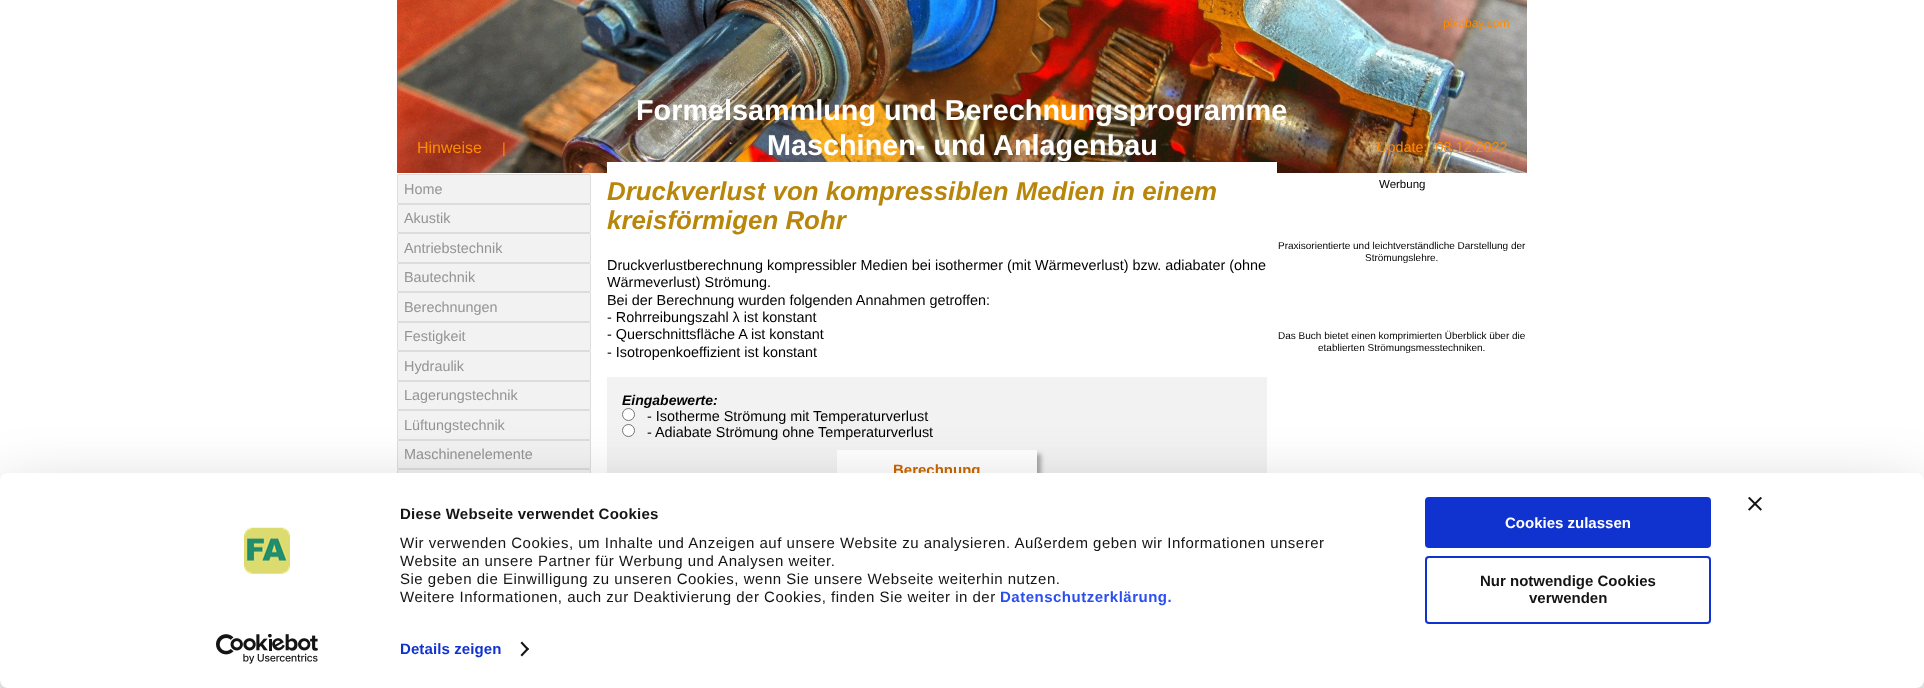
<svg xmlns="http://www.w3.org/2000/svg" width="1924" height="688">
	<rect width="100%" height="100%" fill="#FFFFFF" />
	<image x="397" y="0" width="1130" height="173" href="assets/img1.png" />
	<text x="1443" y="27" font-family="Liberation Sans" font-size="12" fill="#FF8C00">pixabay.com</text>
	<text x="417" y="153" font-family="Liberation Sans" font-size="16" fill="#FF8C00">Hinweise</text>
	<text x="502" y="153" font-family="Liberation Sans" font-size="14.4" fill="#FF8C00">|</text>
	<g font-family="Liberation Sans" font-size="28.8" font-weight="700" fill="#FFFFFF">
		<text x="636" y="120">Formelsammlung und Berechnungsprogramme</text>
		<text x="767" y="155">Maschinen- und Anlagenbau</text>
	</g>
	<text x="1377" y="152" font-family="Liberation Sans" font-size="14.4" fill="#FF8C00" xml:space="preserve">Update:  08.12.2022</text>
	<rect x="397.5" y="174.5" width="193" height="29" rx="0.5" fill="#F2F2F2" stroke="#DCDCDC" />
	<text x="404" y="194" font-family="Liberation Sans" font-size="14.4" fill="#949494">Home</text>
	<rect x="397.5" y="204.5" width="193" height="28" rx="0.5" fill="#F2F2F2" stroke="#DCDCDC" />
	<text x="404" y="223" font-family="Liberation Sans" font-size="14.4" fill="#949494">Akustik</text>
	<rect x="397.5" y="233.5" width="193" height="29" rx="0.5" fill="#F2F2F2" stroke="#DCDCDC" />
	<text x="404" y="253" font-family="Liberation Sans" font-size="14.4" fill="#949494">Antriebstechnik</text>
	<rect x="397.5" y="263.5" width="193" height="28" rx="0.5" fill="#F2F2F2" stroke="#DCDCDC" />
	<text x="404" y="282" font-family="Liberation Sans" font-size="14.4" fill="#949494">Bautechnik</text>
	<rect x="397.5" y="292.5" width="193" height="29" rx="0.5" fill="#F2F2F2" stroke="#DCDCDC" />
	<text x="404" y="312" font-family="Liberation Sans" font-size="14.4" fill="#949494">Berechnungen</text>
	<rect x="397.5" y="322.5" width="193" height="28" rx="0.5" fill="#F2F2F2" stroke="#DCDCDC" />
	<text x="404" y="341" font-family="Liberation Sans" font-size="14.4" fill="#949494">Festigkeit</text>
	<rect x="397.5" y="351.5" width="193" height="29" rx="0.5" fill="#F2F2F2" stroke="#DCDCDC" />
	<text x="404" y="371" font-family="Liberation Sans" font-size="14.4" fill="#949494">Hydraulik</text>
	<rect x="397.5" y="381.5" width="193" height="28" rx="0.5" fill="#F2F2F2" stroke="#DCDCDC" />
	<text x="404" y="400" font-family="Liberation Sans" font-size="14.4" fill="#949494">Lagerungstechnik</text>
	<rect x="397.5" y="410.5" width="193" height="29" rx="0.5" fill="#F2F2F2" stroke="#DCDCDC" />
	<text x="404" y="430" font-family="Liberation Sans" font-size="14.4" fill="#949494">Lüftungstechnik</text>
	<rect x="397.5" y="440.5" width="193" height="28" rx="0.5" fill="#F2F2F2" stroke="#DCDCDC" />
	<text x="404" y="459" font-family="Liberation Sans" font-size="14.4" fill="#949494">Maschinenelemente</text>
	<rect x="397.5" y="469.5" width="193" height="29" rx="0.5" fill="#F2F2F2" stroke="#DCDCDC" />
	<rect x="607" y="162" width="670" height="11" fill="#FFFFFF" />
	<g font-family="Liberation Sans" font-size="25.9" font-weight="700" font-style="italic" fill="#B8860B">
		<text x="607" y="200">Druckverlust von kompressiblen Medien in einem</text>
		<text x="607" y="229">kreisförmigen Rohr</text>
	</g>
	<g font-family="Liberation Sans" font-size="14.4" fill="#000000">
		<text x="607" y="270">Druckverlustberechnung kompressibler Medien bei isothermer (mit Wärmeverlust) bzw. adiabater (ohne</text>
		<text x="607" y="287">Wärmeverlust) Strömung.</text>
		<text x="607" y="305">Bei der Berechnung wurden folgenden Annahmen getroffen:</text>
		<text x="607" y="322">- Rohrreibungszahl λ ist konstant</text>
		<text x="607" y="339">- Querschnittsfläche A ist konstant</text>
		<text x="607" y="357">- Isotropenkoeffizient ist konstant</text>
	</g>
	<rect x="607" y="377" width="660" height="96" fill="#F2F2F2" />
	<text x="622" y="405" font-family="Liberation Sans" font-size="14" font-weight="700" font-style="italic" fill="#000000">Eingabewerte:</text>
	<circle cx="628.5" cy="414.5" r="6" fill="#FFFFFF" stroke="#767676" />
	<text x="647" y="421" font-family="Liberation Sans" font-size="14.4" fill="#000000">- Isotherme Strömung mit Temperaturverlust</text>
	<circle cx="628.5" cy="430.5" r="6" fill="#FFFFFF" stroke="#767676" />
	<text x="647" y="437" font-family="Liberation Sans" font-size="14.4" fill="#000000">- Adiabate Strömung ohne Temperaturverlust</text>
	<rect x="841" y="454" width="200" height="39" fill="#A6A6A6" filter="blur(2px)" />
	<rect x="837" y="450" width="200" height="23" fill="#FFFFFF" />
	<text x="893" y="475" font-family="Liberation Sans" font-size="15" font-weight="700" fill="#CC6600">Berechnung</text>
	<text x="1379" y="188" font-family="Liberation Sans" font-size="11.5" fill="#000000">Werbung</text>
	<g font-family="Liberation Sans" font-size="10" fill="#000000">
		<text x="1278" y="249">Praxisorientierte und leichtverständliche Darstellung der</text>
		<text x="1365" y="261">Strömungslehre.</text>
		<text x="1278" y="339">Das Buch bietet einen komprimierten Überblick über die</text>
		<text x="1318" y="351">etablierten Strömungsmesstechniken.</text>
	</g>
	<rect x="0" y="503" width="1924" height="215" rx="8" fill="#000000" fill-opacity="0.3" filter="blur(35px)" />
	<rect x="0" y="473" width="1924" height="215" rx="8" fill="#FFFFFF" />
	<image x="1748" y="497" width="14" height="14" href="assets/img2.png" />
	<image x="244" y="527" width="46" height="47" href="assets/img3.png" />
	<image x="216" y="634" width="102" height="30" href="assets/img4.png" />
	<text x="400" y="519" font-family="Liberation Sans" font-size="15" font-weight="700" letter-spacing="0.25" fill="#141414">Diese Webseite verwendet Cookies</text>
	<g font-family="Liberation Sans" font-size="15" letter-spacing="0.5" fill="#141414">
		<text x="400" y="548">Wir verwenden Cookies, um Inhalte und Anzeigen auf unsere Website zu analysieren. Außerdem geben wir Informationen unserer</text>
		<text x="400" y="566">Website an unsere Partner für Werbung und Analysen weiter.</text>
		<text x="400" y="584">Sie geben die Einwilligung zu unseren Cookies, wenn Sie unsere Webseite weiterhin nutzen.</text>
		<text x="400" y="602">Weitere Informationen, auch zur Deaktivierung der Cookies, finden Sie weiter in der</text>
	</g>
	<text x="1000" y="602" font-family="Liberation Sans" font-size="15" font-weight="700" letter-spacing="0.5" fill="#2A4EEF">Datenschutzerklärung.</text>
	<text x="400" y="654" font-family="Liberation Sans" font-size="15" font-weight="700" letter-spacing="0.1" fill="#1032CF">Details zeigen</text>
	<path d="M522 641.5L529 649L527.5 650.5L520.5 643Z" fill="#141414" />
	<path d="M527.5 647.5L529 649L522 656.5L520.5 655Z" fill="#141414" />
	<rect x="1426" y="498" width="284" height="49" rx="3" fill="#1032CF" stroke="#1032CF" stroke-width="2" />
	<text x="1505" y="528" font-family="Liberation Sans" font-size="15" font-weight="700" fill="#FFFFFF">Cookies zulassen</text>
	<rect x="1426" y="557" width="284" height="66" rx="3" fill="none" stroke="#1032CF" stroke-width="2" />
	<g font-family="Liberation Sans" font-size="15" font-weight="700" fill="#141414">
		<text x="1480" y="586">Nur notwendige Cookies</text>
		<text x="1529" y="603">verwenden</text>
	</g>
</svg>
